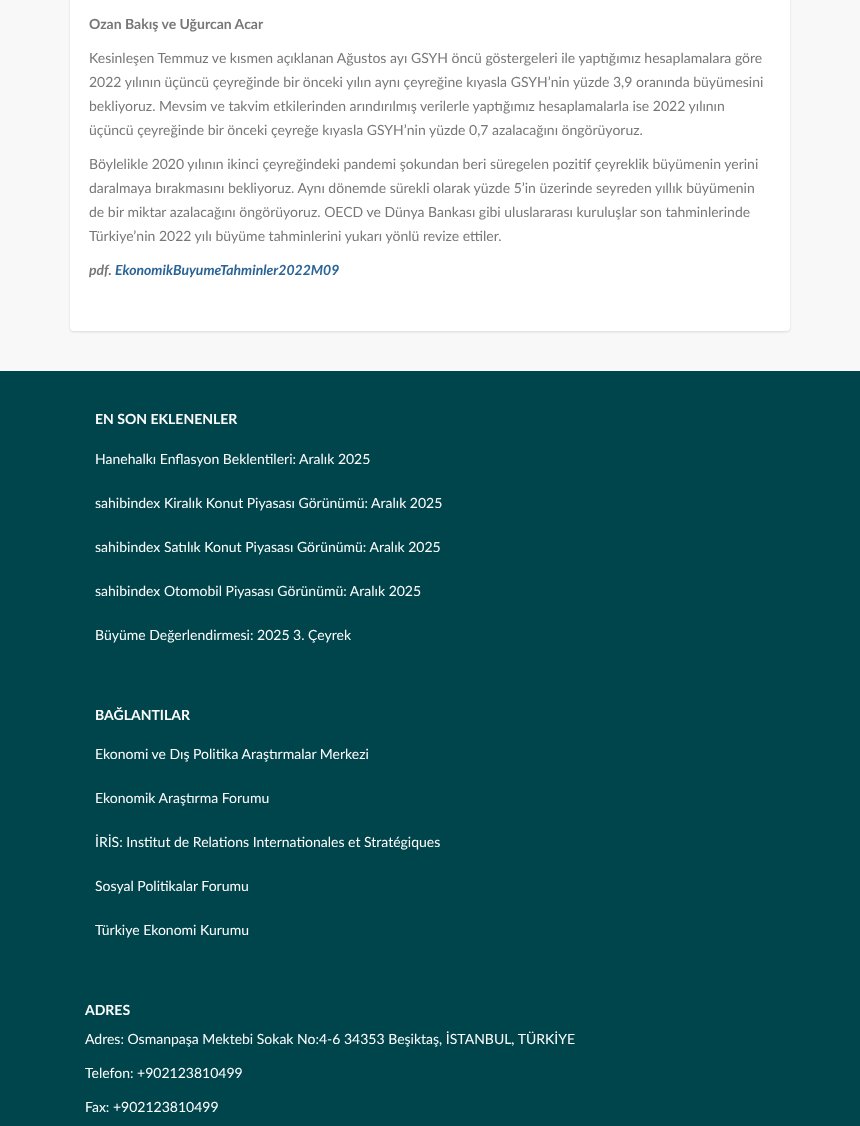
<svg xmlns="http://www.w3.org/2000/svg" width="860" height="1126">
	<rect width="100%" height="100%" fill="#F8F8F8" />
	<rect x="70" y="-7" width="720" height="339" rx="4" fill="#000000" fill-opacity="0.12" filter="blur(1px)" />
	<rect x="70" y="-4" width="720" height="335" rx="4" fill="#FFFFFF" />
	<text x="89" y="29" font-family="Lato" font-size="14" font-weight="700" fill="#777777">Ozan Bakış ve Uğurcan Acar</text>
	<g font-family="Lato" font-size="14" fill="#777777">
		<text x="89" y="63">Kesinleşen Temmuz ve kısmen açıklanan Ağustos ayı GSYH öncü göstergeleri ile yaptığımız hesaplamalara göre</text>
		<text x="89" y="87">2022 yılının üçüncü çeyreğinde bir önceki yılın aynı çeyreğine kıyasla GSYH’nin yüzde 3,9 oranında büyümesini</text>
		<text x="89" y="111">bekliyoruz. Mevsim ve takvim etkilerinden arındırılmış verilerle yaptığımız hesaplamalarla ise 2022 yılının</text>
		<text x="89" y="135">üçüncü çeyreğinde bir önceki çeyreğe kıyasla GSYH’nin yüzde 0,7 azalacağını öngörüyoruz.</text>
		<text x="89" y="169">Böylelikle 2020 yılının ikinci çeyreğindeki pandemi şokundan beri süregelen pozitif çeyreklik büyümenin yerini</text>
		<text x="89" y="193">daralmaya bırakmasını bekliyoruz. Aynı dönemde sürekli olarak yüzde 5’in üzerinde seyreden yıllık büyümenin</text>
		<text x="89" y="217">de bir miktar azalacağını öngörüyoruz. OECD ve Dünya Bankası gibi uluslararası kuruluşlar son tahminlerinde</text>
		<text x="89" y="241">Türkiye’nin 2022 yılı büyüme tahminlerini yukarı yönlü revize ettiler.</text>
	</g>
	<text x="89" y="275" font-family="Lato" font-size="14" font-weight="700" font-style="italic" fill="#777777">pdf.</text>
	<text x="115" y="275" font-family="Lato" font-size="14" font-weight="700" font-style="italic" fill="#2A6496">EkonomikBuyumeTahminler2022M09</text>
	<rect x="0" y="371" width="860" height="755" fill="#01454C" />
	<text x="95" y="424" font-family="Lato" font-size="14" font-weight="700" fill="#FFFFFF">EN SON EKLENENLER</text>
	<g font-family="Lato" font-size="14" fill="#FFFFFF">
		<text x="95" y="464">Hanehalkı Enflasyon Beklentileri: Aralık 2025</text>
		<text x="95" y="508">sahibindex Kiralık Konut Piyasası Görünümü: Aralık 2025</text>
		<text x="95" y="552">sahibindex Satılık Konut Piyasası Görünümü: Aralık 2025</text>
		<text x="95" y="596">sahibindex Otomobil Piyasası Görünümü: Aralık 2025</text>
		<text x="95" y="640">Büyüme Değerlendirmesi: 2025 3. Çeyrek</text>
	</g>
	<text x="95" y="720" font-family="Lato" font-size="14" font-weight="700" fill="#FFFFFF">BAĞLANTILAR</text>
	<g font-family="Lato" font-size="14" fill="#FFFFFF">
		<text x="95" y="759">Ekonomi ve Dış Politika Araştırmalar Merkezi</text>
		<text x="95" y="803">Ekonomik Araştırma Forumu</text>
		<text x="95" y="847">İRİS: Institut de Relations Internationales et Stratégiques</text>
		<text x="95" y="891">Sosyal Politikalar Forumu</text>
		<text x="95" y="935">Türkiye Ekonomi Kurumu</text>
	</g>
	<text x="85" y="1015" font-family="Lato" font-size="14" font-weight="700" fill="#FFFFFF">ADRES</text>
	<g font-family="Lato" font-size="14" fill="#FFFFFF">
		<text x="85" y="1044">Adres: Osmanpaşa Mektebi Sokak No:4-6 34353 Beşiktaş, İSTANBUL, TÜRKİYE</text>
		<text x="85" y="1078">Telefon: +902123810499</text>
		<text x="85" y="1112">Fax: +902123810499</text>
	</g>
</svg>
